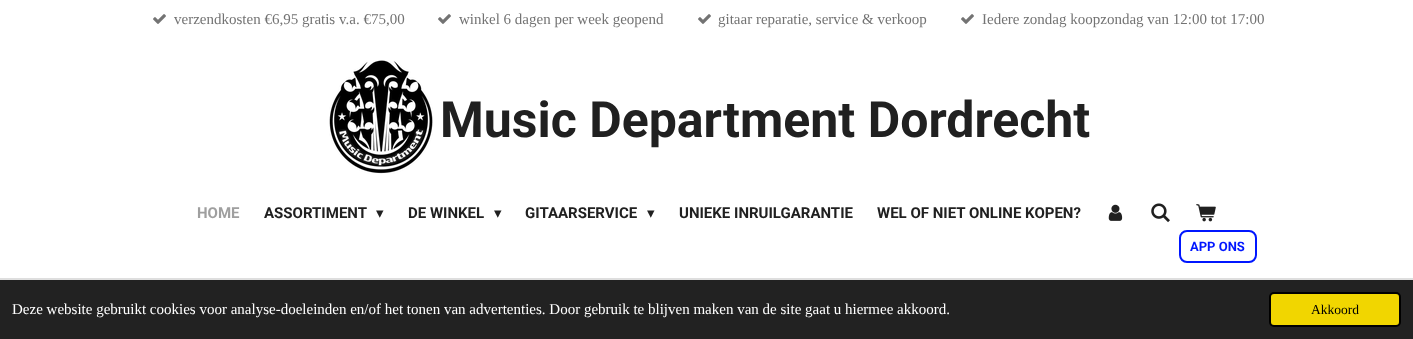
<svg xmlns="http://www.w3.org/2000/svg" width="1413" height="339">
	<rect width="100%" height="100%" fill="#FFFFFF" />
	<image x="153" y="14" width="13" height="10" href="assets/img1.png" />
	<text x="174" y="24" font-family="Liberation Serif" font-size="15" fill="#737373">verzendkosten €6,95 gratis v.a. €75,00</text>
	<image x="438" y="14" width="13" height="10" href="assets/img1.png" />
	<text x="459" y="24" font-family="Liberation Serif" font-size="15" fill="#737373">winkel 6 dagen per week geopend</text>
	<image x="698" y="14" width="13" height="10" href="assets/img1.png" />
	<text x="718" y="24" font-family="Liberation Serif" font-size="15" fill="#737373">gitaar reparatie, service &amp; verkoop</text>
	<image x="961" y="14" width="13" height="10" href="assets/img1.png" />
	<text x="982" y="24" font-family="Liberation Serif" font-size="15" fill="#737373">Iedere zondag koopzondag van 12:00 tot 17:00</text>
	<image x="329" y="60" width="104" height="114" href="assets/img2.png" />
	<text x="440" y="137" font-family="Roboto" font-size="50" font-weight="700" fill="#202020">Music Department Dordrecht</text>
	<text x="197" y="218" font-family="Roboto" font-size="15" font-weight="700" fill="#9F9F9F">HOME</text>
	<text x="264" y="218" font-family="Roboto" font-size="15" font-weight="700" fill="#202020">ASSORTIMENT</text>
	<text x="376" y="218" font-family="DejaVu Sans" font-size="15" fill="#202020">▾</text>
	<text x="408" y="218" font-family="Roboto" font-size="15" font-weight="700" fill="#202020">DE WINKEL</text>
	<text x="494" y="218" font-family="DejaVu Sans" font-size="15" fill="#202020">▾</text>
	<text x="525" y="218" font-family="Roboto" font-size="15" font-weight="700" fill="#202020">GITAARSERVICE</text>
	<text x="647" y="218" font-family="DejaVu Sans" font-size="15" fill="#202020">▾</text>
	<g font-family="Roboto" font-size="15" font-weight="700" fill="#202020">
		<text x="679" y="218">UNIEKE INRUILGARANTIE</text>
		<text x="877" y="218">WEL OF NIET ONLINE KOPEN?</text>
	</g>
	<image x="1108" y="204" width="15" height="17" href="assets/img3.png" />
	<image x="1151" y="203" width="19" height="20" href="assets/img4.png" />
	<image x="1196" y="204" width="20" height="18" href="assets/img5.png" />
	<rect x="1180" y="231" width="76" height="31" rx="7" fill="none" stroke="#0016FF" stroke-width="2" />
	<text x="1190" y="251" font-family="Roboto" font-size="13" font-weight="700" fill="#0016FF">APP ONS</text>
	<rect x="0" y="278" width="1413" height="2" fill="#DEDEDE" />
	<rect x="0" y="280" width="1413" height="59" fill="#222222" />
	<text x="12" y="314" font-family="Liberation Serif" font-size="15" fill="#FFFFFF">Deze website gebruikt cookies voor analyse-doeleinden en/of het tonen van advertenties. Door gebruik te blijven maken van de site gaat u hiermee akkoord.</text>
	<rect x="1270" y="293" width="130" height="33" rx="4" fill="#F1D600" stroke="#000000" stroke-width="2" />
	<text x="1311" y="314" font-family="Liberation Serif" font-size="13.5" fill="#000000">Akkoord</text>
</svg>
